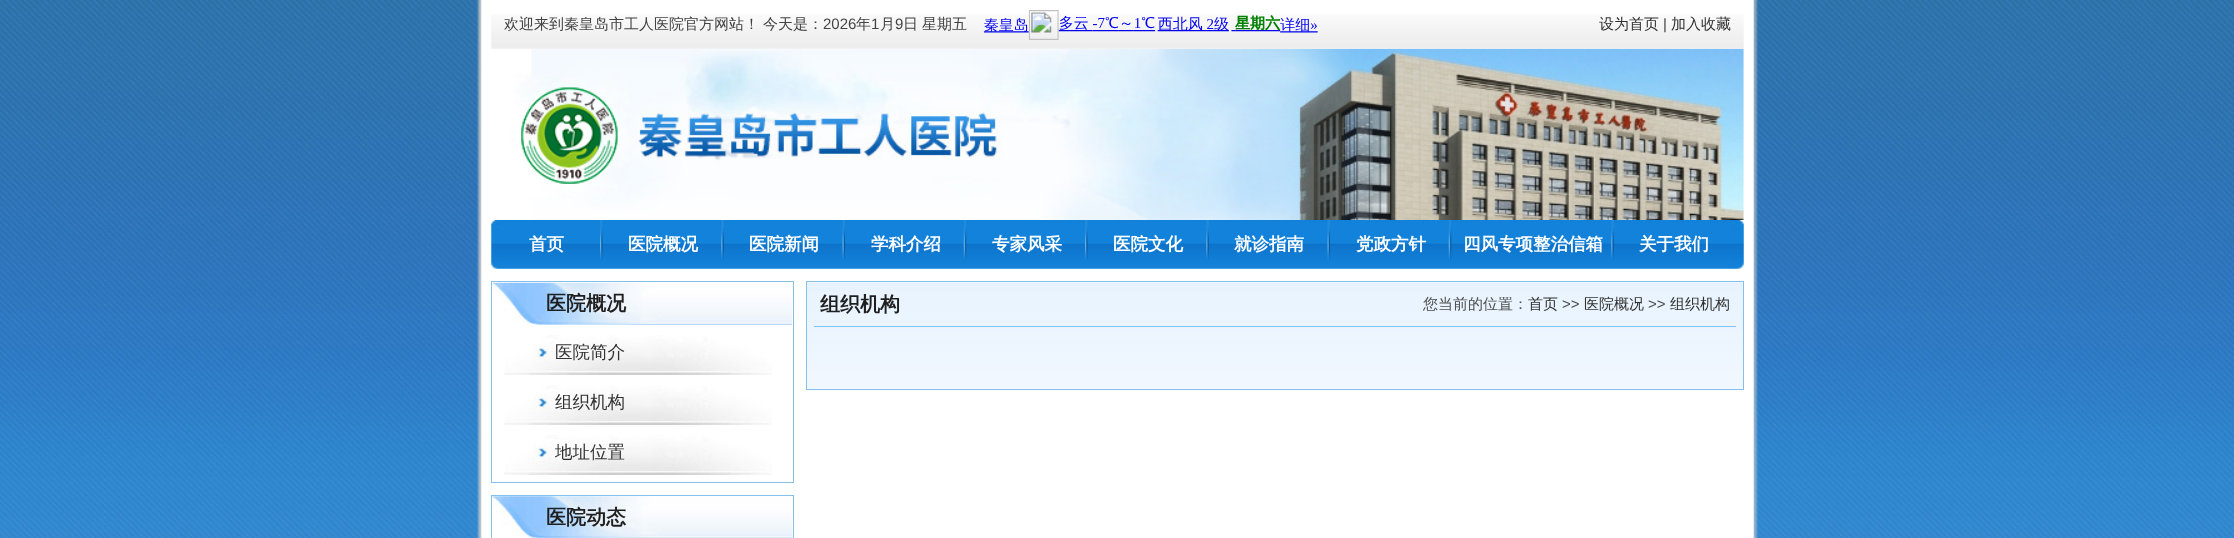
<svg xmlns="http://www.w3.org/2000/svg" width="2234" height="538">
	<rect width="100%" height="100%" fill="#FFFFFF" />
	<image x="0" y="0" width="2234" height="538" href="assets/img1.png" />
	<image x="477" y="0" width="1281" height="538" href="assets/img2.png" />
	<image x="491" y="14" width="1253" height="35" href="assets/img3.png" />
	<g font-family="WenQuanYi Zen Hei" font-size="15" font-weight="500" fill="#424242">
		<text x="504" y="29">欢迎来到秦皇岛市工人医院官方网站！</text>
		<text x="763" y="29">今天是：</text>
	</g>
	<text x="823" y="29" font-family="Liberation Sans" font-size="15" fill="#424242">2026</text>
	<text x="856" y="29" font-family="WenQuanYi Zen Hei" font-size="15" font-weight="500" fill="#424242">年</text>
	<text x="871" y="29" font-family="Liberation Sans" font-size="15" fill="#424242">1</text>
	<text x="880" y="29" font-family="WenQuanYi Zen Hei" font-size="15" font-weight="500" fill="#424242">月</text>
	<text x="895" y="29" font-family="Liberation Sans" font-size="15" fill="#424242">9</text>
	<g font-family="WenQuanYi Zen Hei" font-size="15" font-weight="500" fill="#424242">
		<text x="903" y="29">日</text>
		<text x="922" y="29">星期五</text>
	</g>
	<image x="983" y="10" width="335" height="30" href="assets/img4.png" />
	<text x="1599" y="29" font-family="WenQuanYi Zen Hei" font-size="15" font-weight="500" fill="#303030">设为首页</text>
	<text x="1663" y="29" font-family="Liberation Sans" font-size="15" fill="#424242">|</text>
	<text x="1671" y="29" font-family="WenQuanYi Zen Hei" font-size="15" font-weight="500" fill="#303030">加入收藏</text>
	<image x="511" y="48" width="1233" height="172" href="assets/img5.png" />
	<image x="491" y="220" width="1253" height="49" href="assets/img6.png" />
	<image x="600" y="220" width="3" height="40" href="assets/img7.png" />
	<text x="529" y="250" font-family="WenQuanYi Zen Hei" font-size="17.5" font-weight="700" fill="#FFFFFF">首页</text>
	<image x="721" y="220" width="3" height="40" href="assets/img8.png" />
	<text x="628" y="250" font-family="WenQuanYi Zen Hei" font-size="17.5" font-weight="700" fill="#FFFFFF">医院概况</text>
	<image x="842" y="220" width="3" height="40" href="assets/img9.png" />
	<text x="749" y="250" font-family="WenQuanYi Zen Hei" font-size="17.5" font-weight="700" fill="#FFFFFF">医院新闻</text>
	<image x="963" y="220" width="4" height="40" href="assets/img10.png" />
	<text x="871" y="250" font-family="WenQuanYi Zen Hei" font-size="17.5" font-weight="700" fill="#FFFFFF">学科介绍</text>
	<image x="1085" y="220" width="3" height="40" href="assets/img7.png" />
	<text x="992" y="250" font-family="WenQuanYi Zen Hei" font-size="17.5" font-weight="700" fill="#FFFFFF">专家风采</text>
	<image x="1206" y="220" width="3" height="40" href="assets/img8.png" />
	<text x="1113" y="250" font-family="WenQuanYi Zen Hei" font-size="17.5" font-weight="700" fill="#FFFFFF">医院文化</text>
	<image x="1327" y="220" width="3" height="40" href="assets/img9.png" />
	<text x="1234" y="250" font-family="WenQuanYi Zen Hei" font-size="17.5" font-weight="700" fill="#FFFFFF">就诊指南</text>
	<image x="1448" y="220" width="4" height="40" href="assets/img10.png" />
	<text x="1356" y="250" font-family="WenQuanYi Zen Hei" font-size="17.5" font-weight="700" fill="#FFFFFF">党政方针</text>
	<image x="1611" y="220" width="3" height="40" href="assets/img8.png" />
	<g font-family="WenQuanYi Zen Hei" font-size="17.5" font-weight="700" fill="#FFFFFF">
		<text x="1463" y="250">四风专项整治信箱</text>
		<text x="1639" y="250">关于我们</text>
	</g>
	<rect x="491.5" y="281.5" width="302" height="201" fill="none" stroke="#85C0ED" />
	<image x="492" y="282" width="301" height="43" href="assets/img11.png" />
	<text x="546" y="310" font-family="WenQuanYi Zen Hei" font-size="20" font-weight="700" fill="#1F1F1F">医院概况</text>
	<image x="504" y="335" width="268" height="40" href="assets/img12.png" />
	<text x="555" y="358" font-family="WenQuanYi Zen Hei" font-size="17.5" font-weight="500" fill="#303030">医院简介</text>
	<image x="504" y="385" width="268" height="40" href="assets/img12.png" />
	<text x="555" y="408" font-family="WenQuanYi Zen Hei" font-size="17.5" font-weight="500" fill="#303030">组织机构</text>
	<image x="504" y="435" width="268" height="40" href="assets/img12.png" />
	<text x="555" y="458" font-family="WenQuanYi Zen Hei" font-size="17.5" font-weight="500" fill="#303030">地址位置</text>
	<rect x="491.5" y="495.5" width="302" height="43" fill="none" stroke="#85C0ED" />
	<image x="492" y="496" width="301" height="42" href="assets/img13.png" />
	<text x="546" y="524" font-family="WenQuanYi Zen Hei" font-size="20" font-weight="700" fill="#1F1F1F">医院动态</text>
	<image x="807" y="282" width="936" height="107" href="assets/img14.png" />
	<rect x="806.5" y="281.5" width="937" height="108" fill="none" stroke="#85C0ED" />
	<rect x="814" y="326" width="922" height="1" fill="#7BC3FF" />
	<text x="820" y="311" font-family="WenQuanYi Zen Hei" font-size="20" font-weight="700" fill="#1F1F1F">组织机构</text>
	<text x="1423" y="309" font-family="WenQuanYi Zen Hei" font-size="15" font-weight="500" fill="#4D4D4D">您当前的位置：</text>
	<text x="1528" y="309" font-family="WenQuanYi Zen Hei" font-size="15" font-weight="500" fill="#303030">首页</text>
	<text x="1562" y="309" font-family="Liberation Sans" font-size="15" fill="#4D4D4D">&gt;&gt;</text>
	<text x="1584" y="309" font-family="WenQuanYi Zen Hei" font-size="15" font-weight="500" fill="#303030">医院概况</text>
	<text x="1648" y="309" font-family="Liberation Sans" font-size="15" fill="#4D4D4D">&gt;&gt;</text>
	<text x="1670" y="309" font-family="WenQuanYi Zen Hei" font-size="15" font-weight="500" fill="#303030">组织机构</text>
</svg>
